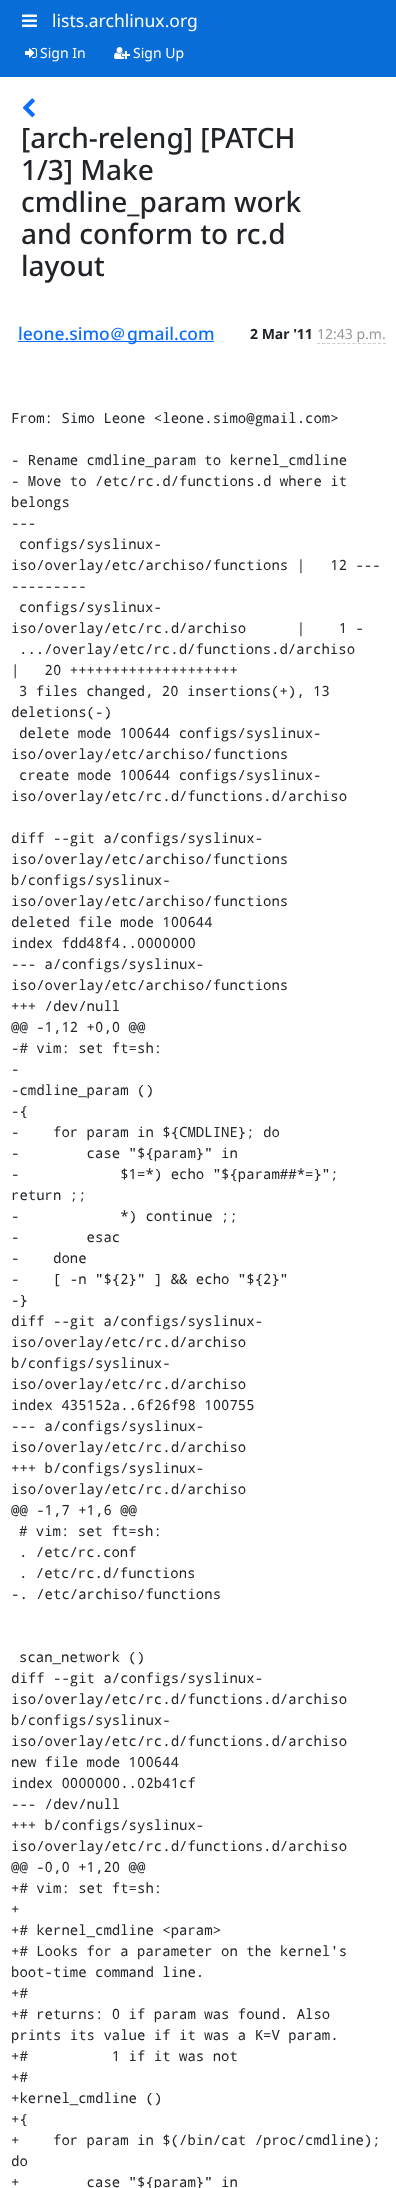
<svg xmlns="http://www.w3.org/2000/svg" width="396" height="2188">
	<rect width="100%" height="100%" fill="#FFFFFF" />
	<rect x="0" y="0" width="396" height="77" fill="#086DD7" />
	<image x="22" y="14" width="15" height="13" href="assets/img1.png" />
	<text x="52" y="27" font-family="Noto Sans" font-size="17.5" fill="#FFFFFF">lists.archlinux.org</text>
	<image x="25" y="48" width="12" height="10" href="assets/img2.png" />
	<text x="40" y="58" font-family="Noto Sans" font-size="14" fill="#FFFFFF">Sign In</text>
	<image x="114" y="47" width="16" height="12" href="assets/img3.png" />
	<text x="133" y="58" font-family="Noto Sans" font-size="14" fill="#FFFFFF">Sign Up</text>
	<image x="22" y="98" width="13" height="20" href="assets/img4.png" />
	<g font-family="Noto Sans" font-size="28" font-weight="500" fill="#212529">
		<text x="21" y="148">[arch-releng] [PATCH</text>
		<text x="21" y="180">1/3] Make</text>
		<text x="21" y="212">cmdline_param work</text>
		<text x="21" y="244">and conform to rc.d</text>
		<text x="21" y="276">layout</text>
	</g>
	<text x="18" y="340" font-family="Noto Sans" font-size="17.5" font-weight="500" fill="#0D6EFD">leone.simo</text>
	<text x="109" y="340" font-family="WenQuanYi Zen Hei" font-size="17.5" font-weight="500" fill="#0D6EFD">＠</text>
	<rect x="18" y="341" width="196" height="1" fill="#0D6EFD" />
	<text x="127" y="340" font-family="Noto Sans" font-size="17.5" font-weight="500" fill="#0D6EFD">gmail.com</text>
	<text x="250" y="339" font-family="Noto Sans" font-size="14" font-weight="700" fill="#212529">2 Mar '11</text>
	<text x="317" y="339" font-family="Noto Sans" font-size="14" fill="#999999">12:43 p.m.</text>
	<path d="M317 343.5H386" fill="none" stroke="#CCCCCC" stroke-dasharray="3 2.08" />
	<g font-family="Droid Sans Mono" font-size="14" fill="#212529">
		<text x="11" y="423">From: Simo Leone &lt;leone.simo@gmail.com&gt;</text>
		<text x="11" y="465">- Rename cmdline_param to kernel_cmdline</text>
		<text x="11" y="486">- Move to /etc/rc.d/functions.d where it</text>
		<text x="11" y="507">belongs</text>
		<text x="11" y="528">---</text>
		<text x="19" y="549">configs/syslinux-</text>
		<text x="11" y="570" xml:space="preserve">iso/overlay/etc/archiso/functions |   12 ---</text>
		<text x="11" y="591">---------</text>
		<text x="19" y="612">configs/syslinux-</text>
		<text x="11" y="633" xml:space="preserve">iso/overlay/etc/rc.d/archiso      |    1 -</text>
		<text x="19" y="654">.../overlay/etc/rc.d/functions.d/archiso</text>
		<text x="11" y="675" xml:space="preserve">|   20 ++++++++++++++++++++</text>
		<text x="19" y="696">3 files changed, 20 insertions(+), 13</text>
		<text x="11" y="717">deletions(-)</text>
		<text x="19" y="738">delete mode 100644 configs/syslinux-</text>
		<text x="11" y="759">iso/overlay/etc/archiso/functions</text>
		<text x="19" y="780">create mode 100644 configs/syslinux-</text>
		<text x="11" y="801">iso/overlay/etc/rc.d/functions.d/archiso</text>
		<text x="11" y="843">diff --git a/configs/syslinux-</text>
		<text x="11" y="864">iso/overlay/etc/archiso/functions</text>
		<text x="11" y="885">b/configs/syslinux-</text>
		<text x="11" y="906">iso/overlay/etc/archiso/functions</text>
		<text x="11" y="927">deleted file mode 100644</text>
		<text x="11" y="948">index fdd48f4..0000000</text>
		<text x="11" y="969">--- a/configs/syslinux-</text>
		<text x="11" y="990">iso/overlay/etc/archiso/functions</text>
		<text x="11" y="1011">+++ /dev/null</text>
		<text x="11" y="1032">@@ -1,12 +0,0 @@</text>
		<text x="11" y="1053">-# vim: set ft=sh:</text>
		<text x="11" y="1074">-</text>
		<text x="11" y="1095">-cmdline_param ()</text>
		<text x="11" y="1116">-{</text>
		<text x="11" y="1137" xml:space="preserve">-    for param in ${CMDLINE}; do</text>
		<text x="11" y="1158" xml:space="preserve">-        case "${param}" in</text>
		<text x="11" y="1179" xml:space="preserve">-            $1=*) echo "${param##*=}";</text>
		<text x="11" y="1200">return ;;</text>
		<text x="11" y="1221" xml:space="preserve">-            *) continue ;;</text>
		<text x="11" y="1242" xml:space="preserve">-        esac</text>
		<text x="11" y="1263" xml:space="preserve">-    done</text>
		<text x="11" y="1284" xml:space="preserve">-    [ -n "${2}" ] &amp;&amp; echo "${2}"</text>
		<text x="11" y="1305">-}</text>
		<text x="11" y="1326">diff --git a/configs/syslinux-</text>
		<text x="11" y="1347">iso/overlay/etc/rc.d/archiso</text>
		<text x="11" y="1368">b/configs/syslinux-</text>
		<text x="11" y="1389">iso/overlay/etc/rc.d/archiso</text>
		<text x="11" y="1410">index 435152a..6f26f98 100755</text>
		<text x="11" y="1431">--- a/configs/syslinux-</text>
		<text x="11" y="1452">iso/overlay/etc/rc.d/archiso</text>
		<text x="11" y="1473">+++ b/configs/syslinux-</text>
		<text x="11" y="1494">iso/overlay/etc/rc.d/archiso</text>
		<text x="11" y="1515">@@ -1,7 +1,6 @@</text>
		<text x="19" y="1536"># vim: set ft=sh:</text>
		<text x="19" y="1557">. /etc/rc.conf</text>
		<text x="19" y="1578">. /etc/rc.d/functions</text>
		<text x="11" y="1599">-. /etc/archiso/functions</text>
		<text x="19" y="1662">scan_network ()</text>
		<text x="11" y="1683">diff --git a/configs/syslinux-</text>
		<text x="11" y="1704">iso/overlay/etc/rc.d/functions.d/archiso</text>
		<text x="11" y="1725">b/configs/syslinux-</text>
		<text x="11" y="1746">iso/overlay/etc/rc.d/functions.d/archiso</text>
		<text x="11" y="1767">new file mode 100644</text>
		<text x="11" y="1788">index 0000000..02b41cf</text>
		<text x="11" y="1809">--- /dev/null</text>
		<text x="11" y="1830">+++ b/configs/syslinux-</text>
		<text x="11" y="1851">iso/overlay/etc/rc.d/functions.d/archiso</text>
		<text x="11" y="1872">@@ -0,0 +1,20 @@</text>
		<text x="11" y="1893">+# vim: set ft=sh:</text>
		<text x="11" y="1914">+</text>
		<text x="11" y="1935">+# kernel_cmdline &lt;param&gt;</text>
		<text x="11" y="1956">+# Looks for a parameter on the kernel's</text>
		<text x="11" y="1977">boot-time command line.</text>
		<text x="11" y="1998">+#</text>
		<text x="11" y="2019">+# returns: 0 if param was found. Also</text>
		<text x="11" y="2040">prints its value if it was a K=V param.</text>
		<text x="11" y="2061" xml:space="preserve">+#          1 if it was not</text>
		<text x="11" y="2082">+#</text>
		<text x="11" y="2103">+kernel_cmdline ()</text>
		<text x="11" y="2124">+{</text>
		<text x="11" y="2145" xml:space="preserve">+    for param in $(/bin/cat /proc/cmdline);</text>
		<text x="11" y="2166">do</text>
		<text x="11" y="2187" xml:space="preserve">+        case "${param}" in</text>
	</g>
</svg>
